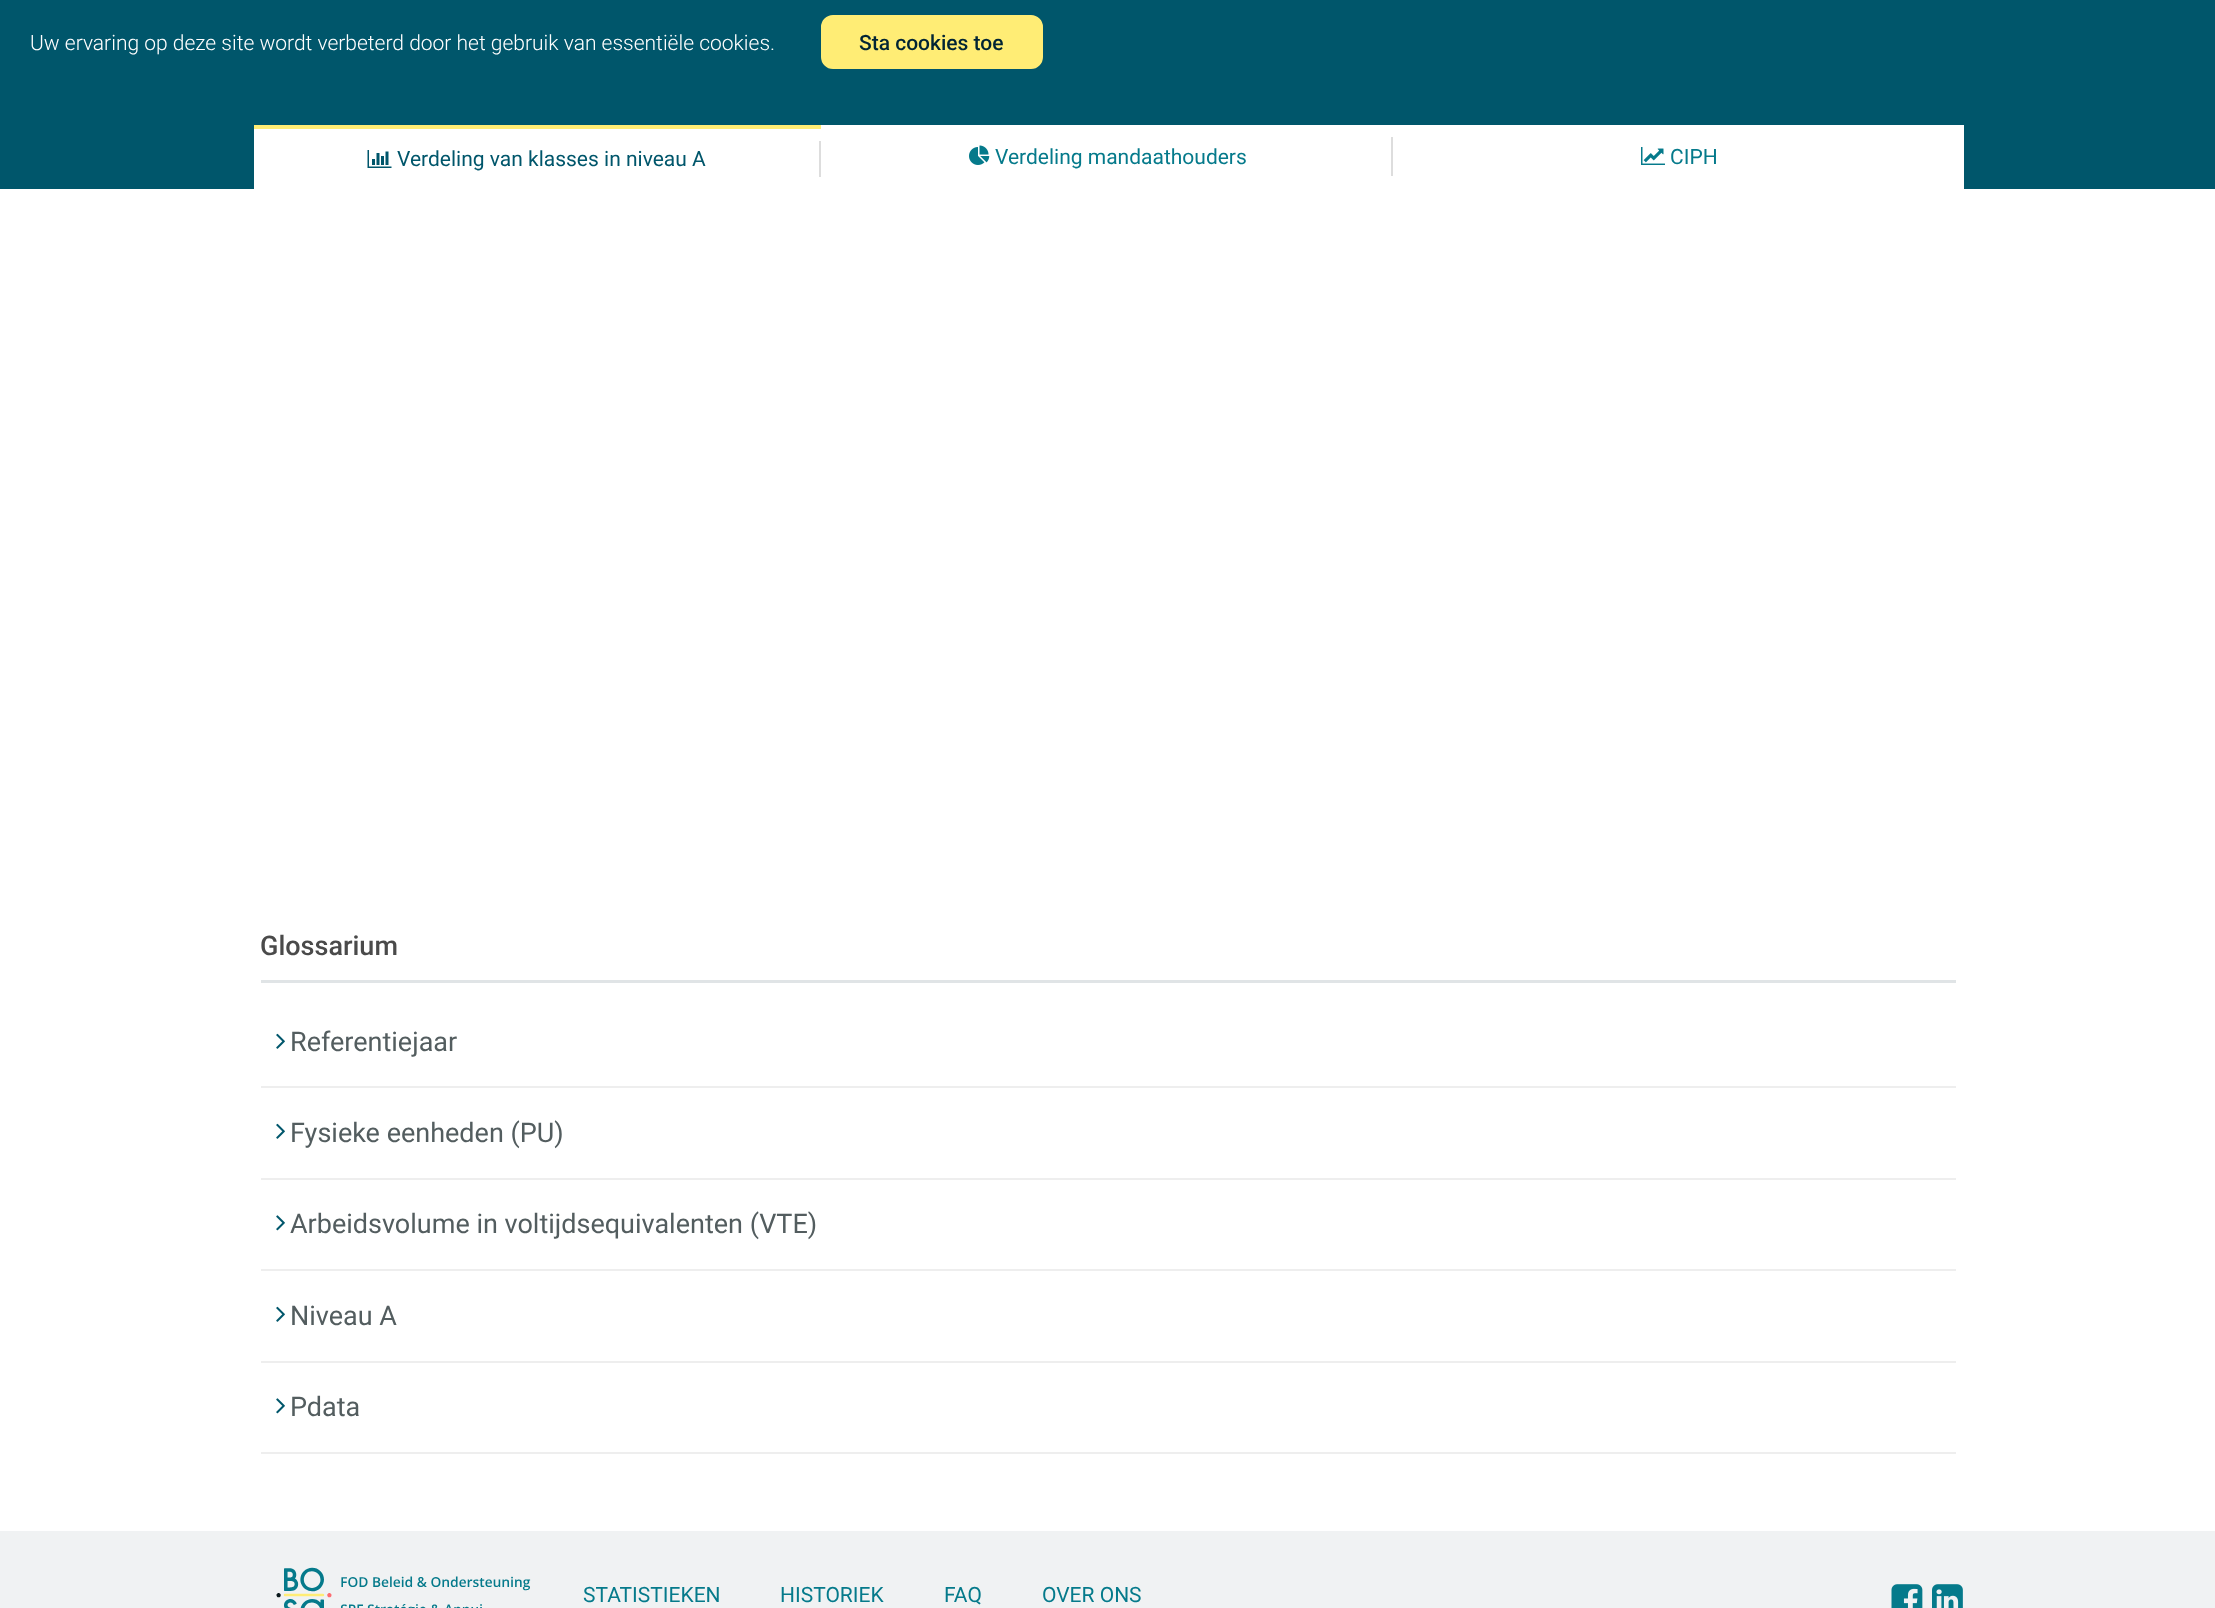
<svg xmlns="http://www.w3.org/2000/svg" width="2215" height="1608">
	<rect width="100%" height="100%" fill="#FFFFFF" />
	<rect x="0" y="0" width="2215" height="189" fill="#00566B" />
	<text x="30" y="50" font-family="Roboto" font-size="21" font-weight="300" fill="#FFFFFF">Uw ervaring op deze site wordt verbeterd door het gebruik van essentiële cookies.</text>
	<rect x="822.5" y="16.5" width="219" height="51" rx="10.5" fill="#FFED75" stroke="#FFED75" stroke-width="3" />
	<text x="859" y="50" font-family="Roboto" font-size="21" font-weight="500" fill="#012434">Sta cookies toe</text>
	<rect x="821" y="125" width="1143" height="64" fill="#FFFFFF" />
	<rect x="254" y="125" width="567" height="4" fill="#FFED75" />
	<rect x="254" y="129" width="567" height="60" fill="#FFFFFF" />
	<image x="367" y="150" width="25" height="18" href="assets/img1.png" />
	<text x="397" y="166" font-family="Roboto" font-size="21" fill="#00566B">Verdeling van klasses in niveau A</text>
	<rect x="819" y="141" width="2" height="36" fill="#DDDDDD" />
	<image x="969" y="145" width="21" height="20" href="assets/img2.png" />
	<text x="995" y="164" font-family="Roboto" font-size="21" fill="#057A8B">Verdeling mandaathouders</text>
	<rect x="1391" y="137" width="2" height="39" fill="#DDDDDD" />
	<image x="1641" y="147" width="24" height="18" href="assets/img3.png" />
	<text x="1670" y="164" font-family="Roboto" font-size="21" fill="#057A8B">CIPH</text>
	<rect x="261" y="980" width="1695" height="3" fill="#E0E4E6" />
	<text x="260" y="955" font-family="Roboto" font-size="27" font-weight="500" fill="#4A4A4A">Glossarium</text>
	<rect x="261" y="1086" width="1695" height="2" fill="#EEEEEE" />
	<image x="276" y="1033" width="9" height="16" href="assets/img4.png" />
	<text x="290" y="1051" font-family="Roboto" font-size="27" fill="#535D5F">Referentiejaar</text>
	<rect x="261" y="1178" width="1695" height="2" fill="#EEEEEE" />
	<image x="276" y="1123" width="9" height="16" href="assets/img4.png" />
	<text x="290" y="1142" font-family="Roboto" font-size="27" fill="#535D5F">Fysieke eenheden (PU)</text>
	<rect x="261" y="1269" width="1695" height="2" fill="#EEEEEE" />
	<image x="276" y="1215" width="9" height="16" href="assets/img5.png" />
	<text x="290" y="1233" font-family="Roboto" font-size="27" fill="#535D5F">Arbeidsvolume in voltijdsequivalenten (VTE)</text>
	<rect x="261" y="1361" width="1695" height="2" fill="#EEEEEE" />
	<image x="276" y="1306" width="9" height="16" href="assets/img4.png" />
	<text x="290" y="1325" font-family="Roboto" font-size="27" fill="#535D5F">Niveau A</text>
	<rect x="261" y="1452" width="1695" height="2" fill="#EEEEEE" />
	<image x="276" y="1398" width="9" height="16" href="assets/img5.png" />
	<text x="290" y="1416" font-family="Roboto" font-size="27" fill="#535D5F">Pdata</text>
	<rect x="0" y="1531" width="2215" height="77" fill="#F0F2F3" />
	<image x="276" y="1567" width="255" height="41" href="assets/img6.png" />
	<g font-family="Roboto" font-size="21" fill="#057A8B">
		<text x="583" y="1602">STATISTIEKEN</text>
		<text x="780" y="1602">HISTORIEK</text>
		<text x="944" y="1602">FAQ</text>
		<text x="1042" y="1602">OVER ONS</text>
	</g>
	<image x="1891" y="1584" width="32" height="24" href="assets/img7.png" />
	<image x="1932" y="1584" width="31" height="24" href="assets/img8.png" />
</svg>
